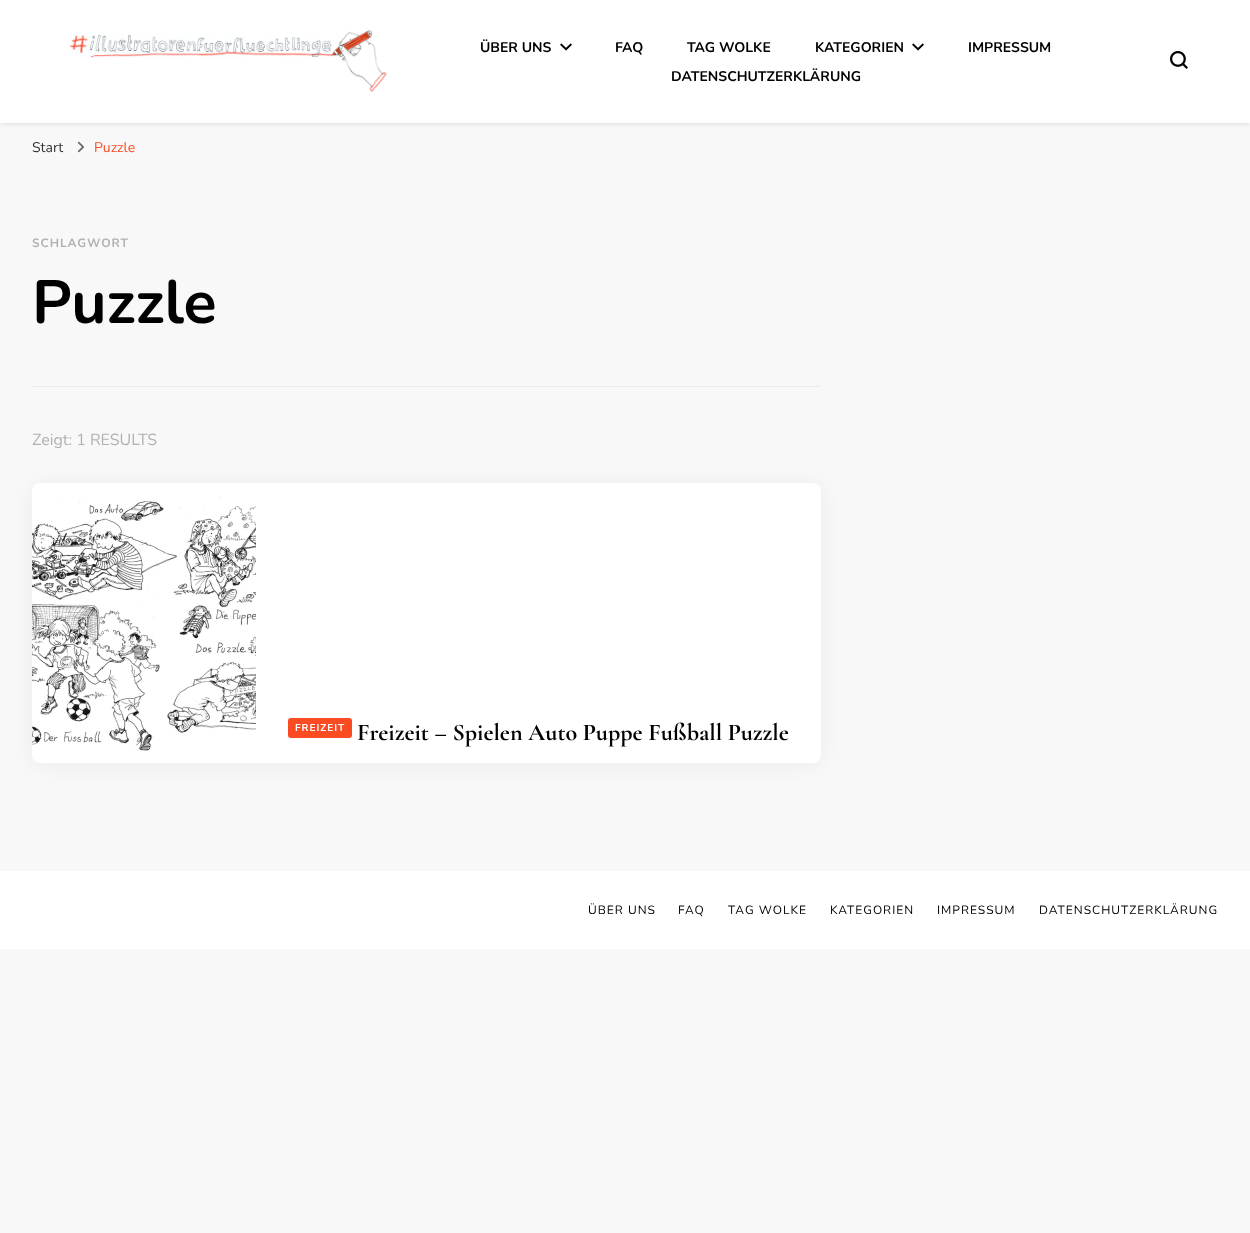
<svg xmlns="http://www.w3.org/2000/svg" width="1250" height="1233">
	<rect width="100%" height="100%" fill="#F8F8F8" />
	<rect x="0" y="1" width="1250" height="123" fill="#000000" fill-opacity="0.1" filter="blur(2.5px)" />
	<rect x="0" y="0" width="1250" height="123" fill="#FFFFFF" />
	<image x="70" y="30" width="317" height="62" href="assets/img1.png" />
	<text x="480" y="52" font-family="Nunito" font-size="14" font-weight="700" fill="#000000">ÜBER UNS</text>
	<image x="560" y="43" width="12" height="8" href="assets/img2.png" />
	<g font-family="Nunito" font-size="14" font-weight="700" fill="#000000">
		<text x="615" y="52">FAQ</text>
		<text x="687" y="52">TAG WOLKE</text>
		<text x="815" y="52">KATEGORIEN</text>
	</g>
	<image x="912" y="43" width="12" height="8" href="assets/img2.png" />
	<g font-family="Nunito" font-size="14" font-weight="700" fill="#000000">
		<text x="968" y="52">IMPRESSUM</text>
		<text x="671" y="81">DATENSCHUTZERKLÄRUNG</text>
	</g>
	<image x="1170" y="51" width="18" height="18" href="assets/img3.png" />
	<text x="32" y="152" font-family="Nunito" font-size="14" fill="#333333">Start</text>
	<image x="77" y="141" width="7" height="12" href="assets/img4.png" />
	<text x="94" y="152" font-family="Nunito" font-size="14" fill="#FB4B22">Puzzle</text>
	<rect x="32" y="386" width="789" height="1" fill="#EBEBEB" />
	<text x="32" y="247" font-family="Nunito" font-size="12" font-weight="700" letter-spacing="1" fill="#B1B1B2">SCHLAGWORT</text>
	<text x="32" y="323" font-family="Nunito" font-size="61" font-weight="700" fill="#000000">Puzzle</text>
	<text x="32" y="445" font-family="Nunito" font-size="16" fill="#B1B1B2">Zeigt: 1 RESULTS</text>
	<rect x="32" y="485" width="789" height="280" rx="8" fill="#000000" fill-opacity="0.05" filter="blur(10px)" />
	<rect x="32" y="483" width="789" height="280" rx="8" fill="#FFFFFF" />
	<image x="32" y="496" width="224" height="255" href="assets/img5.png" />
	<rect x="288" y="718" width="64" height="20" rx="3" fill="#FB4B22" />
	<text x="295" y="731" font-family="Nunito" font-size="10" font-weight="700" letter-spacing="1" fill="#FFFFFF">FREIZEIT</text>
	<text x="357" y="740" font-family="Cormorant Garamond" font-size="24" font-weight="700" fill="#000000">Freizeit – Spielen Auto Puppe Fußball Puzzle</text>
	<rect x="0" y="871" width="1250" height="78" fill="#FFFFFF" />
	<g font-family="Nunito" font-size="12" letter-spacing="1" fill="#000000">
		<text x="588" y="914">ÜBER UNS</text>
		<text x="678" y="914">FAQ</text>
		<text x="728" y="914">TAG WOLKE</text>
		<text x="830" y="914">KATEGORIEN</text>
		<text x="937" y="914">IMPRESSUM</text>
		<text x="1039" y="914">DATENSCHUTZERKLÄRUNG</text>
	</g>
</svg>
